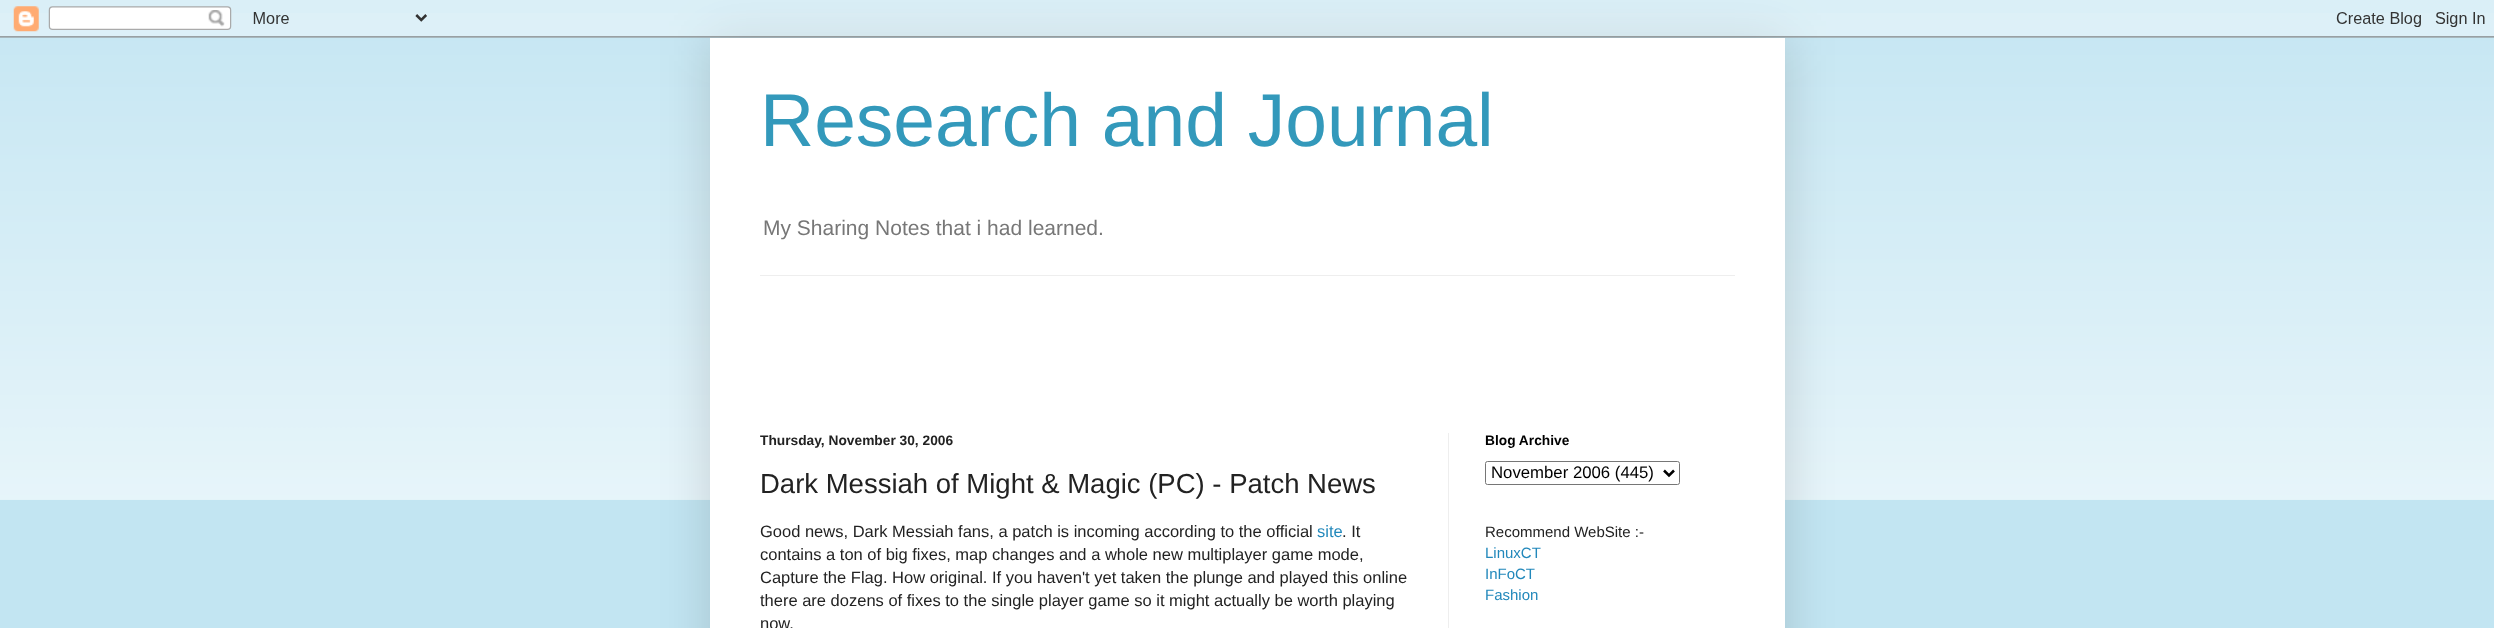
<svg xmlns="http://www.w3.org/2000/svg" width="2494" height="628">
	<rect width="100%" height="100%" fill="#C2E5F2" />
	<image x="0" y="13" width="2494" height="487" href="assets/img2.png" />
	<rect x="710" y="38" width="1075" height="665" fill="#000000" fill-opacity="0.15" filter="blur(25px)" />
	<image x="0" y="0" width="2494" height="38" href="assets/img1.png" />
	<rect x="710" y="38" width="1075" height="590" fill="#FFFFFF" />
	<text x="760" y="146" font-family="Liberation Sans" font-size="75" fill="#3399BB">Research and Journal</text>
	<text x="763" y="235" font-family="Liberation Sans" font-size="21" fill="#777777">My Sharing Notes that i had learned.</text>
	<rect x="760" y="275" width="975" height="1" fill="#EEEEEE" />
	<rect x="1448" y="433" width="1" height="195" fill="#EEEEEE" />
	<text x="760" y="445" font-family="Liberation Sans" font-size="13.75" font-weight="700" fill="#222222">Thursday, November 30, 2006</text>
	<text x="760" y="493" font-family="Liberation Sans" font-size="27.5" fill="#222222">Dark Messiah of Might &amp; Magic (PC) - Patch News</text>
	<text x="760" y="537" font-family="Liberation Sans" font-size="16.5" fill="#222222">Good news, Dark Messiah fans, a patch is incoming according to the official</text>
	<text x="1317" y="537" font-family="Liberation Sans" font-size="16.5" fill="#2288BB">site</text>
	<g font-family="Liberation Sans" font-size="16.5" fill="#222222">
		<text x="1342" y="537">. It</text>
		<text x="760" y="560">contains a ton of big fixes, map changes and a whole new multiplayer game mode,</text>
		<text x="760" y="583">Capture the Flag. How original. If you haven't yet taken the plunge and played this online</text>
		<text x="760" y="606">there are dozens of fixes to the single player game so it might actually be worth playing</text>
		<text x="760" y="629">now.</text>
	</g>
	<text x="1485" y="445" font-family="Liberation Sans" font-size="13.75" font-weight="700" fill="#000000">Blog Archive</text>
	<rect x="1485.5" y="461.5" width="194" height="23" rx="2" fill="none" stroke="#767676" />
	<path d="M1664 470.5L1669 475.5L1674 470.5" fill="none" stroke="#000000" stroke-width="2.5" />
	<text x="1491" y="478" font-family="Liberation Sans" font-size="16.75" fill="#000000">November 2006 (445)</text>
	<text x="1485" y="537" font-family="Liberation Sans" font-size="15" fill="#222222">Recommend WebSite :-</text>
	<g font-family="Liberation Sans" font-size="15" fill="#2288BB">
		<text x="1485" y="558">LinuxCT</text>
		<text x="1485" y="579">InFoCT</text>
		<text x="1485" y="600">Fashion</text>
	</g>
</svg>
